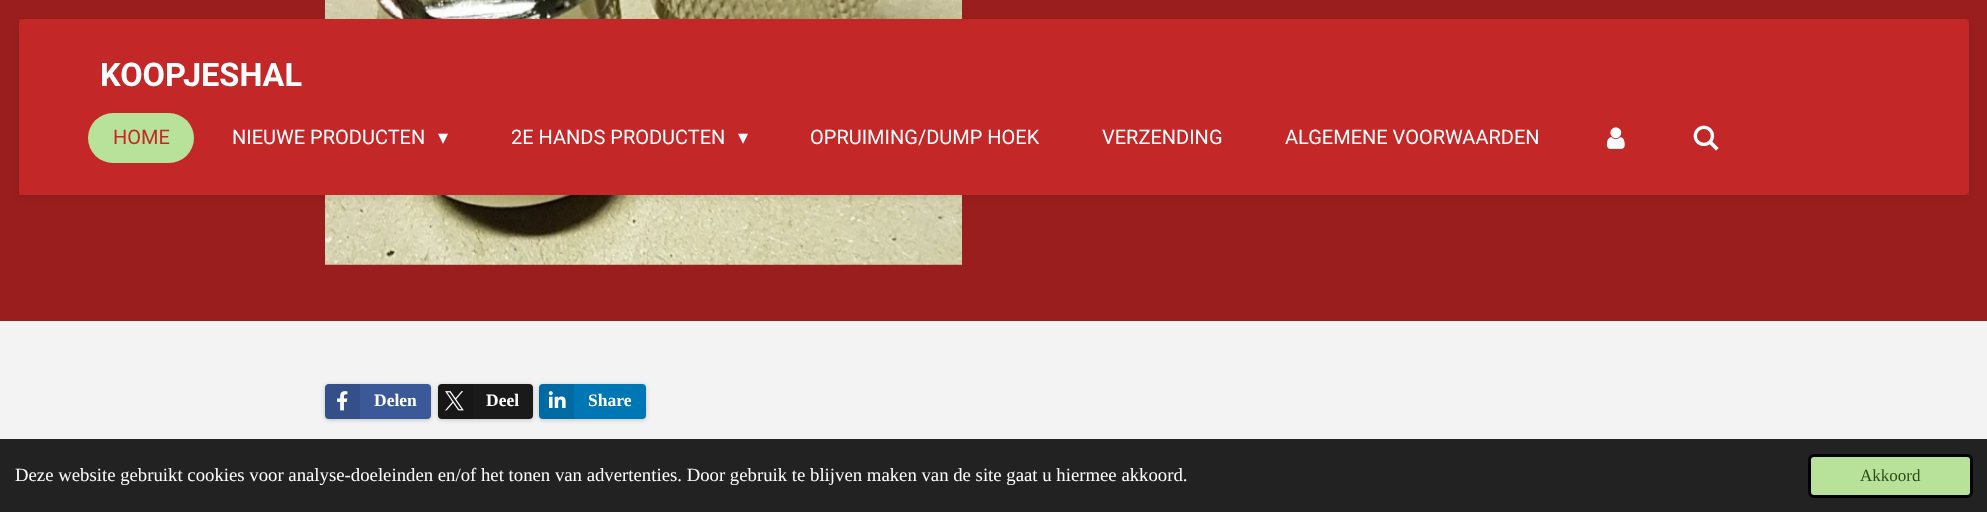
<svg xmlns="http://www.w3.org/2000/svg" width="1987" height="512">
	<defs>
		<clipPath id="clip1"><path d="M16 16H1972V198H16ZM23 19H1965C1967 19 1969 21 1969 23V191C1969 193 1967 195 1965 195H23C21 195 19 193 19 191V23C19 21 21 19 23 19Z" clip-rule="evenodd" /></clipPath>
		<clipPath id="clip2"><path d="M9 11H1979V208H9ZM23 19H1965C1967 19 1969 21 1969 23V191C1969 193 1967 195 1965 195H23C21 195 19 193 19 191V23C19 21 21 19 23 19Z" clip-rule="evenodd" /></clipPath>
	</defs>
	<rect width="100%" height="100%" fill="#9A1E1E" />
	<image x="325" y="0" width="637" height="265" href="assets/img1.png" />
	<rect x="19" y="19" width="1950" height="176" fill="#C42727" />
	<g clip-path="url(#clip1)">
		<rect x="19" y="19" width="1950" height="176" rx="4" fill="#000000" fill-opacity="0.3" filter="blur(0.5px)" />
	</g>
	<g clip-path="url(#clip2)">
		<rect x="19" y="21" width="1950" height="177" rx="4" fill="#000000" fill-opacity="0.07" filter="blur(3px)" />
	</g>
	<text x="100" y="86" font-family="Roboto" font-size="32.5" font-weight="700" fill="#FFFFFF">KOOPJESHAL</text>
	<rect x="88" y="113" width="106" height="50" rx="25" fill="#B8E19A" />
	<text x="113" y="144" font-family="Roboto" font-size="20" fill="#C42727">HOME</text>
	<text x="232" y="144" font-family="Roboto" font-size="20" fill="#FFFFFF">NIEUWE PRODUCTEN</text>
	<text x="438" y="144" font-family="DejaVu Sans" font-size="20" fill="#FFFFFF">▾</text>
	<text x="511" y="144" font-family="Roboto" font-size="20" fill="#FFFFFF">2E HANDS PRODUCTEN</text>
	<text x="738" y="144" font-family="DejaVu Sans" font-size="20" fill="#FFFFFF">▾</text>
	<g font-family="Roboto" font-size="20" fill="#FFFFFF">
		<text x="810" y="144">OPRUIMING/DUMP HOEK</text>
		<text x="1102" y="144">VERZENDING</text>
		<text x="1285" y="144">ALGEMENE VOORWAARDEN</text>
	</g>
	<image x="1606" y="127" width="19" height="22" href="assets/img2.png" />
	<image x="1693" y="125" width="26" height="26" href="assets/img3.png" />
	<rect x="0" y="321" width="1987" height="118" fill="#F3F3F3" />
	<rect x="325" y="385" width="106" height="35" rx="4" fill="#000000" fill-opacity="0.2" filter="blur(2px)" />
	<rect x="325" y="384" width="106" height="35" rx="4" fill="#3B5998" />
	<path d="M329 384H360V419H329C327 419 325 417 325 415V388C325 386 327 384 329 384Z" fill="#000000" fill-opacity="0.1" />
	<image x="337" y="391" width="11" height="20" href="assets/img4.png" />
	<text x="374" y="406" font-family="Liberation Serif" font-size="17.5" font-weight="700" fill="#FFFFFF">Delen</text>
	<rect x="438" y="385" width="95" height="35" rx="4" fill="#000000" fill-opacity="0.2" filter="blur(2px)" />
	<rect x="438" y="384" width="95" height="35" rx="4" fill="#1A1A1A" />
	<path d="M442 384H473V419H442C440 419 438 417 438 415V388C438 386 440 384 442 384Z" fill="#000000" fill-opacity="0.1" />
	<image x="445" y="391" width="19" height="20" href="assets/img5.png" />
	<text x="486" y="406" font-family="Liberation Serif" font-size="17.5" font-weight="700" fill="#FFFFFF">Deel</text>
	<rect x="539" y="385" width="107" height="35" rx="4" fill="#000000" fill-opacity="0.2" filter="blur(2px)" />
	<rect x="539" y="384" width="107" height="35" rx="4" fill="#0077B5" />
	<path d="M543 384H574V419H543C541 419 539 417 539 415V388C539 386 541 384 543 384Z" fill="#000000" fill-opacity="0.1" />
	<image x="548" y="391" width="18" height="17" href="assets/img6.png" />
	<text x="588" y="406" font-family="Liberation Serif" font-size="17.5" font-weight="700" fill="#FFFFFF">Share</text>
	<rect x="0" y="439" width="1987" height="73" fill="#222222" />
	<text x="15" y="481" font-family="Liberation Serif" font-size="18.75" fill="#FFFFFF">Deze website gebruikt cookies voor analyse-doeleinden en/of het tonen van advertenties. Door gebruik te blijven maken van de site gaat u hiermee akkoord.</text>
	<rect x="1809.5" y="455.5" width="162" height="41" rx="4.5" fill="#B8E19A" stroke="#000000" stroke-width="3" />
	<text x="1860" y="481" font-family="Liberation Serif" font-size="17" fill="#2D4C17">Akkoord</text>
</svg>
